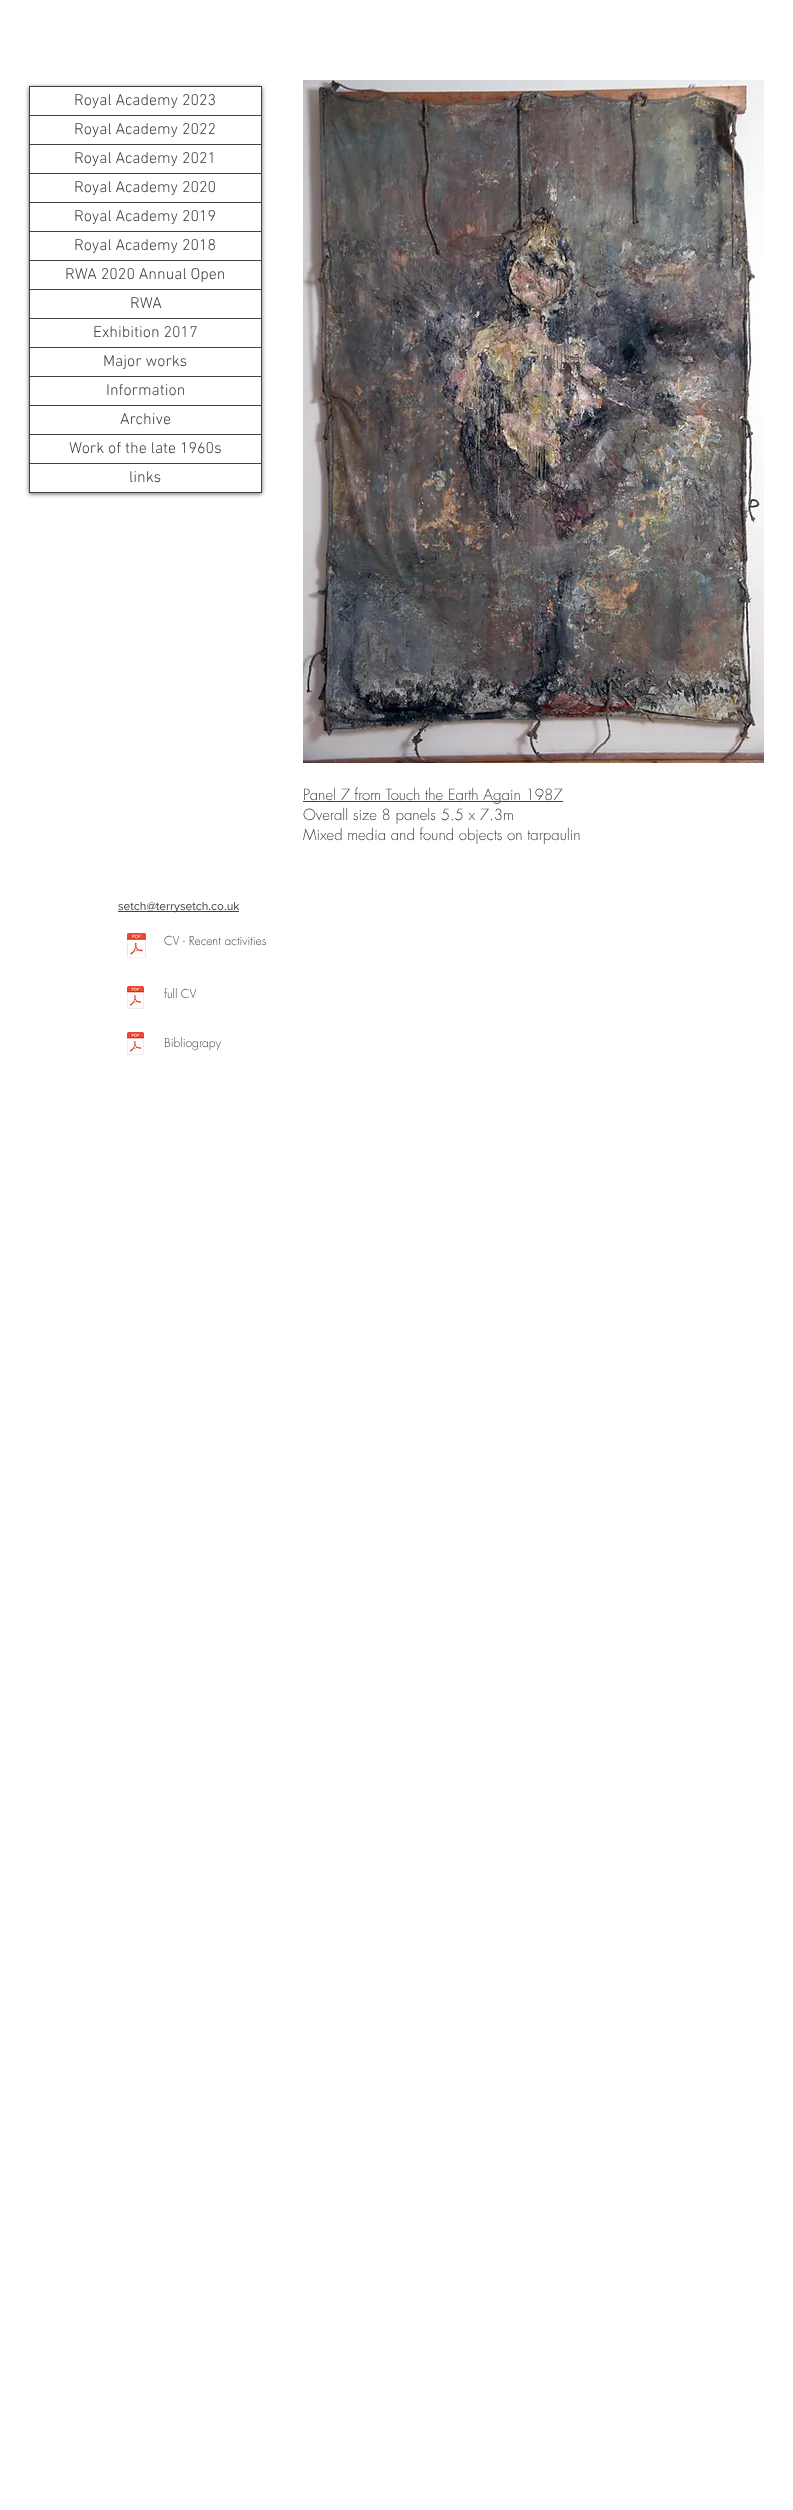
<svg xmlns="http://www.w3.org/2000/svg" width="793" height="2510">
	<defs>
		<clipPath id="clip1"><path d="M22 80H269V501H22ZM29 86H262V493H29Z" clip-rule="evenodd" /></clipPath>
	</defs>
	<rect width="100%" height="100%" fill="#FFFFFF" />
	<g clip-path="url(#clip1)">
		<rect x="29" y="87" width="233" height="407" fill="#000000" fill-opacity="0.6" filter="blur(2px)" />
	</g>
	<rect x="29.5" y="86.5" width="232" height="406" fill="none" stroke="#414141" />
	<rect x="30" y="115" width="231" height="1" fill="#414141" />
	<text x="74" y="105" font-family="'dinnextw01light'" font-size="16" font-weight="300" fill="#414141">Royal Academy 2023</text>
	<rect x="30" y="144" width="231" height="1" fill="#414141" />
	<text x="74" y="134" font-family="'dinnextw01light'" font-size="16" font-weight="300" fill="#414141">Royal Academy 2022</text>
	<rect x="30" y="173" width="231" height="1" fill="#414141" />
	<text x="74" y="163" font-family="'dinnextw01light'" font-size="16" font-weight="300" fill="#414141">Royal Academy 2021</text>
	<rect x="30" y="202" width="231" height="1" fill="#414141" />
	<text x="74" y="192" font-family="'dinnextw01light'" font-size="16" font-weight="300" fill="#414141">Royal Academy 2020</text>
	<rect x="30" y="231" width="231" height="1" fill="#414141" />
	<text x="74" y="221" font-family="'dinnextw01light'" font-size="16" font-weight="300" fill="#414141">Royal Academy 2019</text>
	<rect x="30" y="260" width="231" height="1" fill="#414141" />
	<text x="74" y="250" font-family="'dinnextw01light'" font-size="16" font-weight="300" fill="#414141">Royal Academy 2018</text>
	<rect x="30" y="289" width="231" height="1" fill="#414141" />
	<text x="65" y="279" font-family="'dinnextw01light'" font-size="16" font-weight="300" fill="#414141">RWA 2020 Annual Open</text>
	<rect x="30" y="318" width="231" height="1" fill="#414141" />
	<text x="130" y="308" font-family="'dinnextw01light'" font-size="16" font-weight="300" fill="#414141">RWA</text>
	<rect x="30" y="347" width="231" height="1" fill="#414141" />
	<text x="93" y="337" font-family="'dinnextw01light'" font-size="16" font-weight="300" fill="#414141">Exhibition 2017</text>
	<rect x="30" y="376" width="231" height="1" fill="#414141" />
	<text x="103" y="366" font-family="'dinnextw01light'" font-size="16" font-weight="300" fill="#414141">Major works</text>
	<rect x="30" y="405" width="231" height="1" fill="#414141" />
	<text x="106" y="395" font-family="'dinnextw01light'" font-size="16" font-weight="300" fill="#414141">Information</text>
	<rect x="30" y="434" width="231" height="1" fill="#414141" />
	<text x="120" y="424" font-family="'dinnextw01light'" font-size="16" font-weight="300" fill="#414141">Archive</text>
	<rect x="30" y="463" width="231" height="1" fill="#414141" />
	<g font-family="'dinnextw01light'" font-size="16" font-weight="300" fill="#414141">
		<text x="69" y="453">Work of the late 1960s</text>
		<text x="129" y="482">links</text>
	</g>
	<image x="303" y="80" width="461" height="683" href="assets/img1.png" />
	<rect x="303" y="801" width="260" height="1" fill="#414141" />
	<g font-family="futura" font-size="15" font-weight="300" fill="#414141">
		<text x="303" y="800">Panel 7 from Touch the Earth Again 1987</text>
		<text x="303" y="820">Overall size 8 panels 5.5 x 7.3m</text>
		<text x="303" y="840">Mixed media and found objects on tarpaulin</text>
	</g>
	<rect x="118" y="911" width="121" height="1" fill="#414141" />
	<text x="118" y="910" font-family="'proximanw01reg'" font-size="12" fill="#414141">setch@terrysetch.co.uk</text>
	<image x="127" y="933" width="19" height="25" href="assets/img2.png" />
	<text x="164" y="945" font-family="futura" font-size="12" font-weight="300" fill="#414141">CV - Recent activities</text>
	<image x="127" y="986" width="17" height="23" href="assets/img3.png" />
	<text x="164" y="998" font-family="futura" font-size="12" font-weight="300" fill="#414141">full CV</text>
	<image x="127" y="1032" width="17" height="23" href="assets/img3.png" />
	<text x="164" y="1047" font-family="futura" font-size="12" font-weight="300" fill="#414141">Bibliograpy</text>
</svg>
